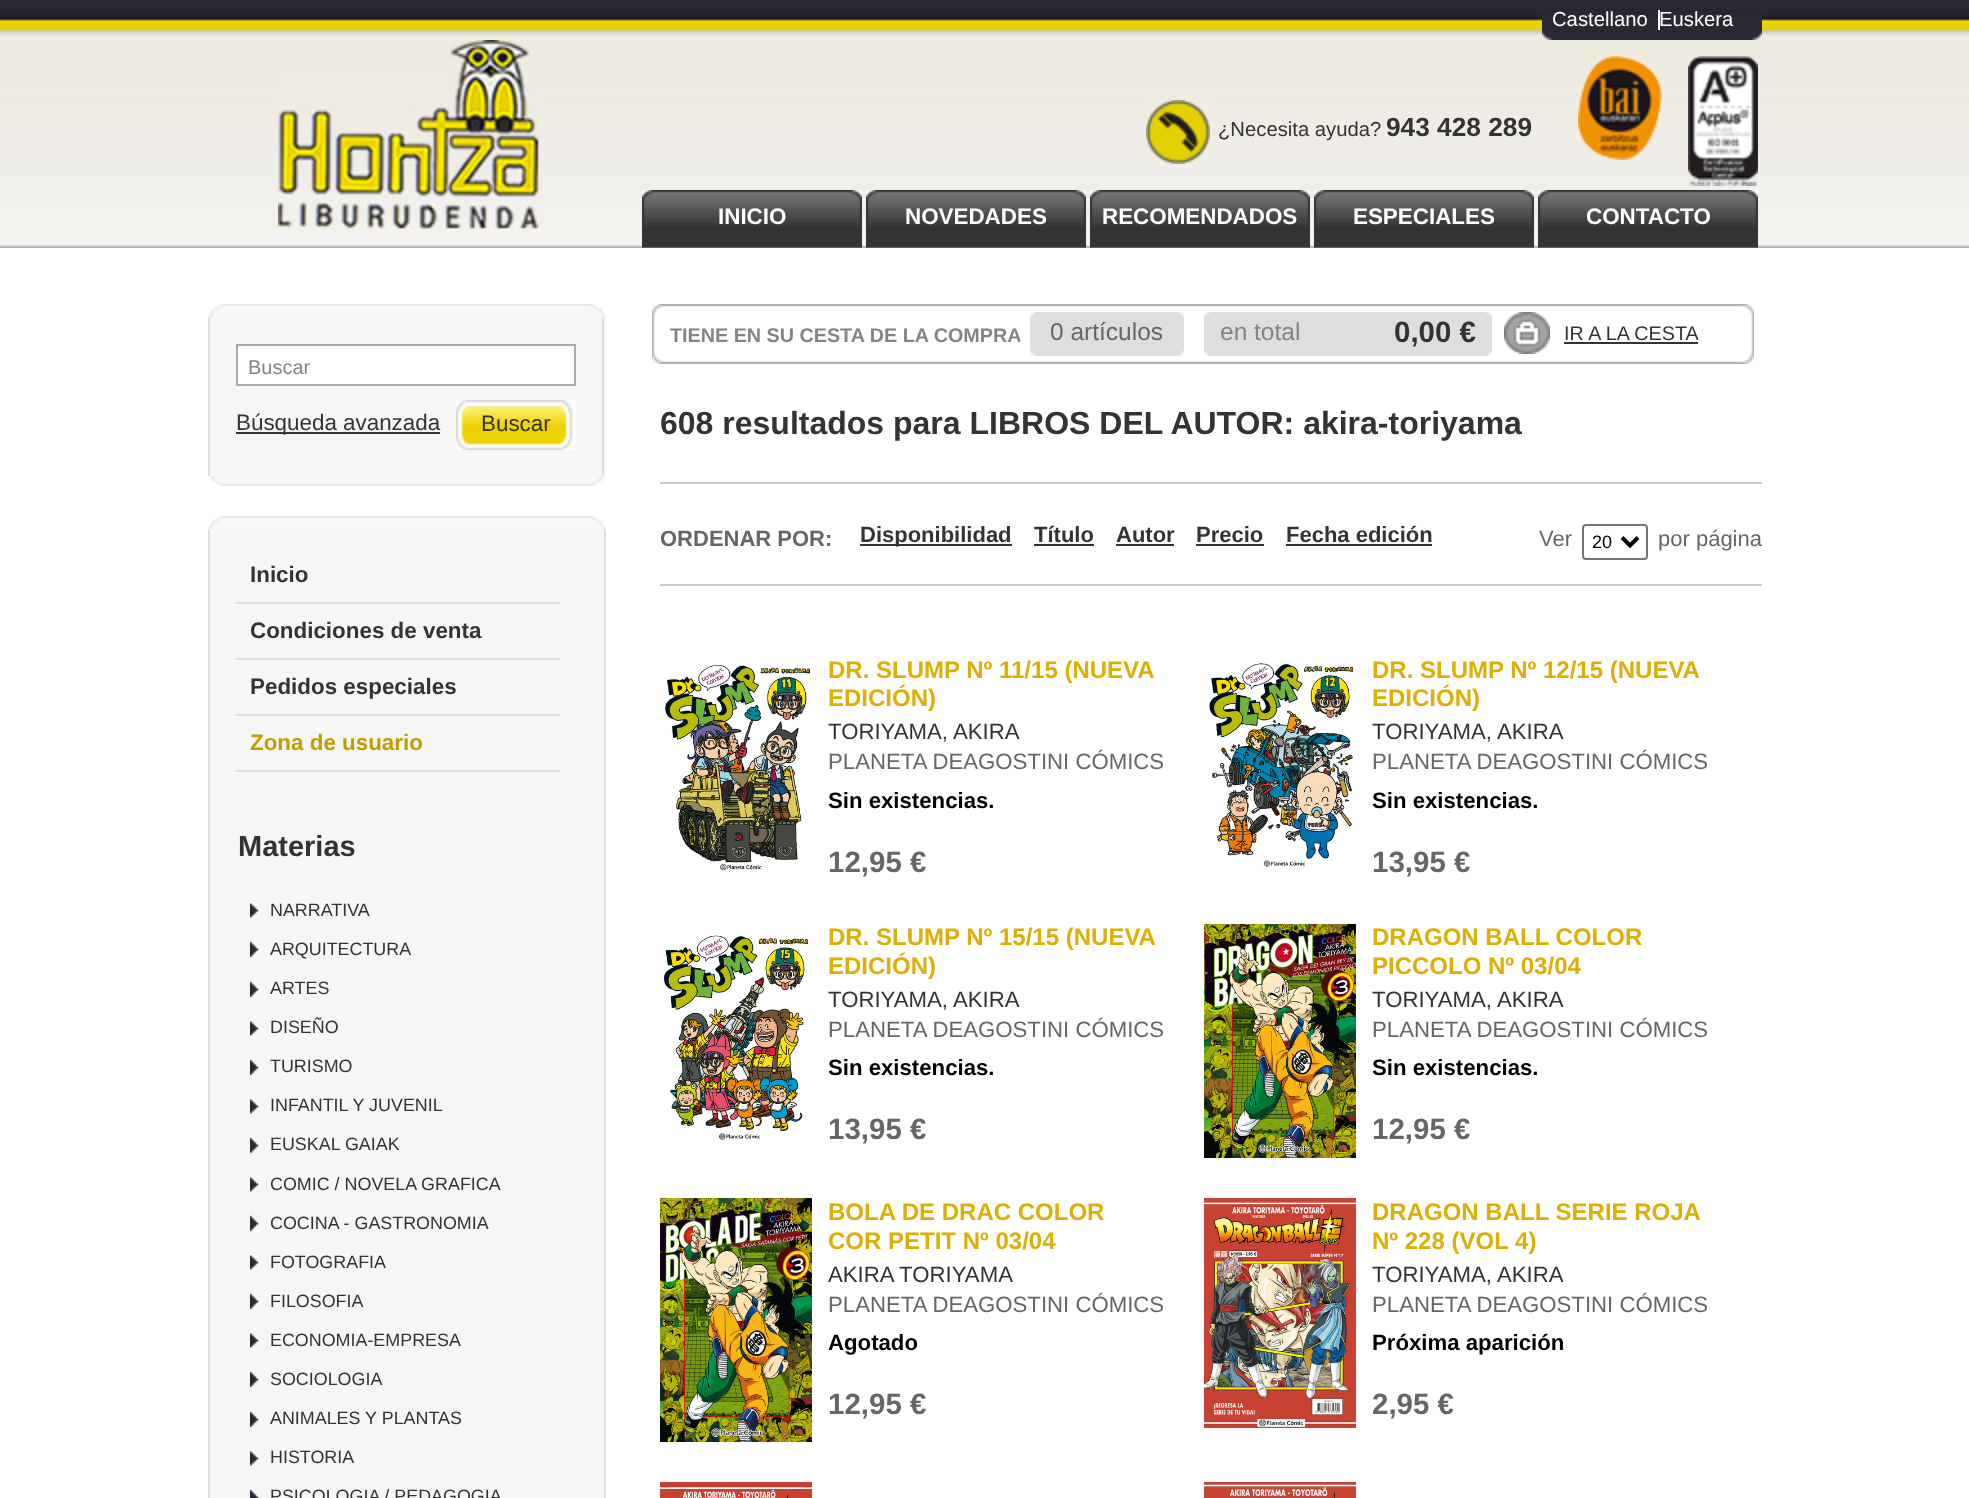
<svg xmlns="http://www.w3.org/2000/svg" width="1969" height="1498">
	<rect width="100%" height="100%" fill="#FFFFFF" />
	<image x="0" y="0" width="1969" height="248" href="assets/img1.png" />
	<image x="1542" y="13" width="220" height="27" href="assets/img2.png" />
	<rect x="1658" y="10" width="2" height="20" fill="#FFFFFF" />
	<g font-family="Liberation Sans" font-size="20.25" fill="#FFFFFF">
		<text x="1552" y="26">Castellano</text>
		<text x="1659" y="26">Euskera</text>
	</g>
	<image x="278" y="40" width="262" height="190" href="assets/img3.png" />
	<image x="1146" y="100" width="64" height="64" href="assets/img4.png" />
	<text x="1218" y="136" font-family="Liberation Sans" font-size="20.25" fill="#333333">¿Necesita ayuda?</text>
	<text x="1386" y="136" font-family="Liberation Sans" font-size="26.25" font-weight="700" fill="#333333">943 428 289</text>
	<image x="1578" y="56" width="84" height="104" href="assets/img5.png" />
	<image x="1688" y="56" width="70" height="130" href="assets/img6.png" />
	<image x="642" y="190" width="220" height="58" href="assets/img7.png" />
	<text x="718" y="224" font-family="Liberation Sans" font-size="22.4" font-weight="700" fill="#FFFFFF">INICIO</text>
	<image x="866" y="190" width="220" height="58" href="assets/img7.png" />
	<text x="905" y="224" font-family="Liberation Sans" font-size="22.4" font-weight="700" fill="#FFFFFF">NOVEDADES</text>
	<image x="1090" y="190" width="220" height="58" href="assets/img7.png" />
	<text x="1102" y="224" font-family="Liberation Sans" font-size="22.4" font-weight="700" fill="#FFFFFF">RECOMENDADOS</text>
	<image x="1314" y="190" width="220" height="58" href="assets/img7.png" />
	<text x="1353" y="224" font-family="Liberation Sans" font-size="22.4" font-weight="700" fill="#FFFFFF">ESPECIALES</text>
	<image x="1538" y="190" width="220" height="58" href="assets/img7.png" />
	<text x="1586" y="224" font-family="Liberation Sans" font-size="22.4" font-weight="700" fill="#FFFFFF">CONTACTO</text>
	<rect x="210" y="318" width="396" height="158" fill="#F6F6F6" />
	<image x="208" y="304" width="398" height="14" href="assets/img8.png" />
	<rect x="602" y="318" width="2" height="158" fill="#DDDDDD" />
	<rect x="208" y="318" width="2" height="158" fill="#DDDDDD" />
	<rect x="237" y="345" width="338" height="40" fill="#FFFFFF" stroke="#AAAAAA" stroke-width="2" />
	<text x="248" y="374" font-family="Liberation Sans" font-size="20" fill="#848484">Buscar</text>
	<image x="456" y="400" width="120" height="50" href="assets/img9.png" />
	<text x="481" y="431" font-family="Liberation Sans" font-size="22.4" fill="#333333">Buscar</text>
	<rect x="236" y="432" width="204" height="2" fill="#333333" />
	<text x="236" y="430" font-family="Liberation Sans" font-size="22.4" fill="#333333">Búsqueda avanzada</text>
	<image x="210" y="476" width="394" height="10" href="assets/img10.png" />
	<rect x="210" y="530" width="394" height="968" fill="#F6F6F6" />
	<image x="208" y="516" width="398" height="14" href="assets/img8.png" />
	<rect x="604" y="530" width="2" height="968" fill="#DDDDDD" />
	<rect x="208" y="530" width="2" height="968" fill="#DDDDDD" />
	<rect x="236" y="602" width="324" height="2" fill="#DDDDDD" />
	<text x="250" y="582" font-family="Liberation Sans" font-size="22.4" font-weight="700" fill="#333333">Inicio</text>
	<rect x="236" y="658" width="324" height="2" fill="#DDDDDD" />
	<text x="250" y="638" font-family="Liberation Sans" font-size="22.4" font-weight="700" fill="#333333">Condiciones de venta</text>
	<rect x="236" y="714" width="324" height="2" fill="#DDDDDD" />
	<text x="250" y="694" font-family="Liberation Sans" font-size="22.4" font-weight="700" fill="#333333">Pedidos especiales</text>
	<rect x="236" y="770" width="324" height="2" fill="#DDDDDD" />
	<text x="250" y="750" font-family="Liberation Sans" font-size="22.4" font-weight="700" fill="#C49C00">Zona de usuario</text>
	<text x="238" y="856" font-family="Liberation Sans" font-size="29" font-weight="700" fill="#333333">Materias</text>
	<image x="250" y="903" width="9" height="15" href="assets/img11.png" />
	<text x="270" y="916" font-family="Liberation Sans" font-size="17.9" fill="#333333">NARRATIVA</text>
	<image x="250" y="941" width="9" height="17" href="assets/img12.png" />
	<text x="270" y="955" font-family="Liberation Sans" font-size="17.9" fill="#333333">ARQUITECTURA</text>
	<image x="250" y="981" width="9" height="17" href="assets/img12.png" />
	<text x="270" y="994" font-family="Liberation Sans" font-size="17.9" fill="#333333">ARTES</text>
	<image x="250" y="1021" width="9" height="15" href="assets/img11.png" />
	<text x="270" y="1033" font-family="Liberation Sans" font-size="17.9" fill="#333333">DISEÑO</text>
	<image x="250" y="1059" width="9" height="17" href="assets/img12.png" />
	<text x="270" y="1072" font-family="Liberation Sans" font-size="17.9" fill="#333333">TURISMO</text>
	<image x="250" y="1099" width="9" height="15" href="assets/img11.png" />
	<text x="270" y="1111" font-family="Liberation Sans" font-size="17.9" fill="#333333">INFANTIL Y JUVENIL</text>
	<image x="250" y="1137" width="9" height="17" href="assets/img12.png" />
	<text x="270" y="1150" font-family="Liberation Sans" font-size="17.9" fill="#333333">EUSKAL GAIAK</text>
	<image x="250" y="1177" width="9" height="15" href="assets/img11.png" />
	<text x="270" y="1190" font-family="Liberation Sans" font-size="17.9" fill="#333333">COMIC / NOVELA GRAFICA</text>
	<image x="250" y="1215" width="9" height="17" href="assets/img12.png" />
	<text x="270" y="1229" font-family="Liberation Sans" font-size="17.9" fill="#333333">COCINA - GASTRONOMIA</text>
	<image x="250" y="1255" width="9" height="15" href="assets/img11.png" />
	<text x="270" y="1268" font-family="Liberation Sans" font-size="17.9" fill="#333333">FOTOGRAFIA</text>
	<image x="250" y="1293" width="9" height="17" href="assets/img12.png" />
	<text x="270" y="1307" font-family="Liberation Sans" font-size="17.9" fill="#333333">FILOSOFIA</text>
	<image x="250" y="1333" width="9" height="15" href="assets/img11.png" />
	<text x="270" y="1346" font-family="Liberation Sans" font-size="17.9" fill="#333333">ECONOMIA-EMPRESA</text>
	<image x="250" y="1371" width="9" height="17" href="assets/img12.png" />
	<text x="270" y="1385" font-family="Liberation Sans" font-size="17.9" fill="#333333">SOCIOLOGIA</text>
	<image x="250" y="1411" width="9" height="17" href="assets/img12.png" />
	<text x="270" y="1424" font-family="Liberation Sans" font-size="17.9" fill="#333333">ANIMALES Y PLANTAS</text>
	<image x="250" y="1451" width="9" height="15" href="assets/img11.png" />
	<text x="270" y="1463" font-family="Liberation Sans" font-size="17.9" fill="#333333">HISTORIA</text>
	<image x="250" y="1489" width="9" height="9" href="assets/img13.png" />
	<text x="270" y="1502" font-family="Liberation Sans" font-size="17.9" fill="#333333">PSICOLOGIA / PEDAGOGIA</text>
	<image x="652" y="304" width="1102" height="60" href="assets/img14.png" />
	<rect x="662" y="304" width="1076" height="2" fill="#B1B1B1" />
	<rect x="662" y="362" width="1076" height="2" fill="#B1B1B1" />
	<text x="670" y="342" font-family="Liberation Sans" font-size="19.75" font-weight="700" fill="#848484">TIENE EN SU CESTA DE LA COMPRA</text>
	<rect x="1020" y="341" width="1" height="1" fill="#FFFFFF" />
	<image x="1030" y="312" width="154" height="44" href="assets/img15.png" />
	<text x="1050" y="340" font-family="Liberation Sans" font-size="24.5" fill="#666666">0 artículos</text>
	<image x="1204" y="312" width="288" height="44" href="assets/img16.png" />
	<text x="1220" y="340" font-family="Liberation Sans" font-size="24.5" fill="#848484">en total</text>
	<text x="1394" y="342" font-family="Liberation Sans" font-size="29.5" font-weight="700" fill="#333333">0,00 €</text>
	<image x="1504" y="312" width="46" height="42" href="assets/img17.png" />
	<text x="1564" y="340" font-family="Liberation Sans" font-size="19.75" fill="#333333">IR A LA CESTA</text>
	<rect x="1564" y="342" width="134" height="2" fill="#333333" />
	<text x="660" y="434" font-family="Liberation Sans" font-size="32" font-weight="700" fill="#333333">608 resultados para LIBROS DEL AUTOR: akira-toriyama</text>
	<rect x="660" y="482" width="1102" height="2" fill="#CCCCCC" />
	<rect x="660" y="584" width="1102" height="2" fill="#CCCCCC" />
	<text x="660" y="546" font-family="Liberation Sans" font-size="22" font-weight="700" fill="#666666">ORDENAR POR:</text>
	<rect x="860" y="544" width="152" height="2" fill="#333333" />
	<g font-family="Liberation Sans" font-size="22" font-weight="700" fill="#333333">
		<text x="860" y="542">Disponibilidad</text>
		<text x="1034" y="542">Título</text>
	</g>
	<rect x="1034" y="544" width="60" height="2" fill="#333333" />
	<text x="1116" y="542" font-family="Liberation Sans" font-size="22" font-weight="700" fill="#333333">Autor</text>
	<rect x="1116" y="544" width="58" height="2" fill="#333333" />
	<text x="1196" y="542" font-family="Liberation Sans" font-size="22" font-weight="700" fill="#333333">Precio</text>
	<rect x="1196" y="544" width="68" height="2" fill="#333333" />
	<text x="1286" y="542" font-family="Liberation Sans" font-size="22" font-weight="700" fill="#333333">Fecha edición</text>
	<rect x="1286" y="544" width="146" height="2" fill="#333333" />
	<text x="1539" y="546" font-family="Liberation Sans" font-size="22" fill="#666666">Ver</text>
	<rect x="1583" y="525" width="64" height="34" rx="3" fill="none" stroke="#767676" stroke-width="2" />
	<path d="M1622 537.5L1630 545.5L1638 537.5" fill="none" stroke="#000000" stroke-width="4" />
	<text x="1592" y="548" font-family="Liberation Sans" font-size="18" fill="#000000">20</text>
	<text x="1658" y="546" font-family="Liberation Sans" font-size="22" fill="#666666">por página</text>
	<image x="664" y="664" width="147" height="207" href="assets/img18.png" />
	<g font-family="Liberation Sans" font-size="24" font-weight="700" fill="#DDAE04">
		<text x="828" y="678">DR. SLUMP Nº 11/15 (NUEVA</text>
		<text x="828" y="706">EDICIÓN)</text>
	</g>
	<text x="828" y="739" font-family="Liberation Sans" font-size="22.2" fill="#333333">TORIYAMA, AKIRA</text>
	<text x="828" y="769" font-family="Liberation Sans" font-size="22.2" fill="#666666">PLANETA DEAGOSTINI CÓMICS</text>
	<text x="828" y="808" font-family="Liberation Sans" font-size="22.2" font-weight="700" fill="#000000">Sin existencias.</text>
	<text x="828" y="872" font-family="Liberation Sans" font-size="29.5" font-weight="700" fill="#666666">12,95 €</text>
	<image x="1209" y="662" width="145" height="205" href="assets/img19.png" />
	<g font-family="Liberation Sans" font-size="24" font-weight="700" fill="#DDAE04">
		<text x="1372" y="678">DR. SLUMP Nº 12/15 (NUEVA</text>
		<text x="1372" y="706">EDICIÓN)</text>
	</g>
	<text x="1372" y="739" font-family="Liberation Sans" font-size="22.2" fill="#333333">TORIYAMA, AKIRA</text>
	<text x="1372" y="769" font-family="Liberation Sans" font-size="22.2" fill="#666666">PLANETA DEAGOSTINI CÓMICS</text>
	<text x="1372" y="808" font-family="Liberation Sans" font-size="22.2" font-weight="700" fill="#000000">Sin existencias.</text>
	<text x="1372" y="872" font-family="Liberation Sans" font-size="29.5" font-weight="700" fill="#666666">13,95 €</text>
	<image x="663" y="934" width="146" height="206" href="assets/img20.png" />
	<g font-family="Liberation Sans" font-size="24" font-weight="700" fill="#DDAE04">
		<text x="828" y="945">DR. SLUMP Nº 15/15 (NUEVA</text>
		<text x="828" y="974">EDICIÓN)</text>
	</g>
	<text x="828" y="1007" font-family="Liberation Sans" font-size="22.2" fill="#333333">TORIYAMA, AKIRA</text>
	<text x="828" y="1037" font-family="Liberation Sans" font-size="22.2" fill="#666666">PLANETA DEAGOSTINI CÓMICS</text>
	<text x="828" y="1075" font-family="Liberation Sans" font-size="22.2" font-weight="700" fill="#000000">Sin existencias.</text>
	<text x="828" y="1139" font-family="Liberation Sans" font-size="29.5" font-weight="700" fill="#666666">13,95 €</text>
	<image x="1204" y="924" width="152" height="234" href="assets/img21.png" />
	<g font-family="Liberation Sans" font-size="24" font-weight="700" fill="#DDAE04">
		<text x="1372" y="945">DRAGON BALL COLOR</text>
		<text x="1372" y="974">PICCOLO Nº 03/04</text>
	</g>
	<text x="1372" y="1007" font-family="Liberation Sans" font-size="22.2" fill="#333333">TORIYAMA, AKIRA</text>
	<text x="1372" y="1037" font-family="Liberation Sans" font-size="22.2" fill="#666666">PLANETA DEAGOSTINI CÓMICS</text>
	<text x="1372" y="1075" font-family="Liberation Sans" font-size="22.2" font-weight="700" fill="#000000">Sin existencias.</text>
	<text x="1372" y="1139" font-family="Liberation Sans" font-size="29.5" font-weight="700" fill="#666666">12,95 €</text>
	<image x="660" y="1198" width="152" height="244" href="assets/img22.png" />
	<g font-family="Liberation Sans" font-size="24" font-weight="700" fill="#DDAE04">
		<text x="828" y="1220">BOLA DE DRAC COLOR</text>
		<text x="828" y="1249">COR PETIT Nº 03/04</text>
	</g>
	<text x="828" y="1282" font-family="Liberation Sans" font-size="22.2" fill="#333333">AKIRA TORIYAMA</text>
	<text x="828" y="1312" font-family="Liberation Sans" font-size="22.2" fill="#666666">PLANETA DEAGOSTINI CÓMICS</text>
	<text x="828" y="1350" font-family="Liberation Sans" font-size="22.2" font-weight="700" fill="#000000">Agotado</text>
	<text x="828" y="1414" font-family="Liberation Sans" font-size="29.5" font-weight="700" fill="#666666">12,95 €</text>
	<image x="1204" y="1198" width="152" height="230" href="assets/img23.png" />
	<g font-family="Liberation Sans" font-size="24" font-weight="700" fill="#DDAE04">
		<text x="1372" y="1220">DRAGON BALL SERIE ROJA</text>
		<text x="1372" y="1249">Nº 228 (VOL 4)</text>
	</g>
	<text x="1372" y="1282" font-family="Liberation Sans" font-size="22.2" fill="#333333">TORIYAMA, AKIRA</text>
	<text x="1372" y="1312" font-family="Liberation Sans" font-size="22.2" fill="#666666">PLANETA DEAGOSTINI CÓMICS</text>
	<text x="1372" y="1350" font-family="Liberation Sans" font-size="22.2" font-weight="700" fill="#000000">Próxima aparición</text>
	<text x="1372" y="1414" font-family="Liberation Sans" font-size="29.5" font-weight="700" fill="#666666">2,95 €</text>
	<image x="660" y="1482" width="152" height="16" href="assets/img24.png" />
	<image x="1204" y="1482" width="152" height="16" href="assets/img25.png" />
</svg>
